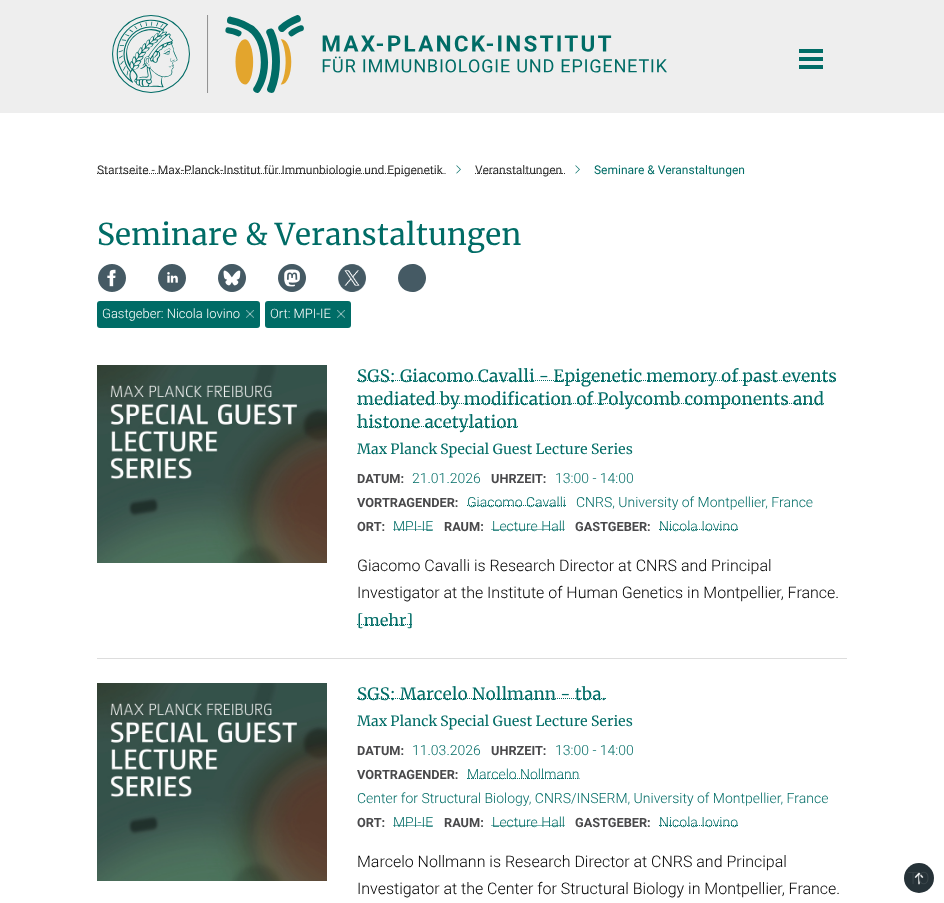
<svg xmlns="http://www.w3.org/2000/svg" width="944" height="903">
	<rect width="100%" height="100%" fill="#FFFFFF" />
	<rect x="0" y="0" width="944" height="113" fill="#EEEEEE" />
	<image x="112" y="15" width="555" height="78" href="assets/img1.png" />
	<rect x="799" y="49" width="24" height="4" fill="#006C66" />
	<rect x="799" y="57" width="24" height="4" fill="#006C66" />
	<rect x="799" y="65" width="24" height="4" fill="#006C66" />
	<path d="M97 173.5H442.5" fill="none" stroke="#333333" stroke-dasharray="1 1" />
	<text x="97" y="174" font-family="Roboto" font-size="12" fill="#333333">Startseite - Max-Planck-Institut für Immunbiologie und Epigenetik</text>
	<path d="M442.5 173.5H443.5M444.5 173.5H445.5" fill="none" stroke="#333333" />
	<image x="456" y="165" width="5" height="9" href="assets/img2.png" />
	<path d="M475 173.5H562" fill="none" stroke="#333333" stroke-dasharray="1 1" />
	<text x="475" y="174" font-family="Roboto" font-size="12" fill="#333333">Veranstaltungen</text>
	<path d="M562 173.5H563M564 173.5H565" fill="none" stroke="#333333" />
	<image x="575" y="165" width="5" height="9" href="assets/img2.png" />
	<text x="594" y="174" font-family="Roboto" font-size="12" fill="#006C66">Seminare &amp; Veranstaltungen</text>
	<text x="97" y="245" font-family="Merriweather" font-size="30" fill="#006C66">Seminare &amp; Veranstaltungen</text>
	<image x="98" y="264" width="28" height="28" href="assets/img3.png" />
	<image x="158" y="264" width="28" height="28" href="assets/img4.png" />
	<image x="218" y="264" width="28" height="28" href="assets/img5.png" />
	<image x="278" y="264" width="28" height="28" href="assets/img6.png" />
	<image x="338" y="264" width="28" height="28" href="assets/img7.png" />
	<path d="M426 278C426 281 425 283.5 423.5 286C416 297.5 398 291.5 398 278C398 264.5 416 258.5 423.5 270C425 272.5 426 275 426 278Z" fill="#455A64" />
	<rect x="97" y="301" width="163" height="27" rx="3" fill="#006C66" />
	<text x="102" y="318" font-family="Roboto" font-size="13" font-weight="300" fill="#FFFFFF">Gastgeber: Nicola Iovino</text>
	<image x="246" y="310" width="8" height="8" href="assets/img8.png" />
	<rect x="265" y="301" width="86" height="27" rx="3" fill="#006C66" />
	<text x="270" y="318" font-family="Roboto" font-size="13" font-weight="300" fill="#FFFFFF">Ort: MPI-IE</text>
	<image x="337" y="310" width="8" height="8" href="assets/img8.png" />
	<rect x="97" y="658" width="750" height="1" fill="#DDDDDD" />
	<image x="97" y="365" width="230" height="198" href="assets/img9.png" />
	<path d="M357 380.5H837" fill="none" stroke="#006C66" stroke-dasharray="1 1" />
	<text x="357" y="382" font-family="Merriweather" font-size="17" fill="#006C66">SGS: Giacomo Cavalli - Epigenetic memory of past events</text>
	<path d="M357 403.5H824" fill="none" stroke="#006C66" stroke-dasharray="1 1" />
	<text x="357" y="405" font-family="Merriweather" font-size="17" fill="#006C66">mediated by modification of Polycomb components and</text>
	<path d="M357 426.5H518" fill="none" stroke="#006C66" stroke-dasharray="1 1" />
	<text x="357" y="428" font-family="Merriweather" font-size="17" fill="#006C66">histone acetylation</text>
	<text x="357" y="454" font-family="Merriweather" font-size="14" fill="#006C66">Max Planck Special Guest Lecture Series</text>
	<text x="357" y="483" font-family="Roboto" font-size="12.75" font-weight="700" fill="#49494B">DATUM:</text>
	<text x="412" y="483" font-family="Roboto" font-size="14" font-weight="300" fill="#006C66">21.01.2026</text>
	<text x="491" y="483" font-family="Roboto" font-size="12.75" font-weight="700" fill="#49494B">UHRZEIT:</text>
	<text x="555" y="483" font-family="Roboto" font-size="14" font-weight="300" fill="#006C66">13:00 - 14:00</text>
	<text x="357" y="507" font-family="Roboto" font-size="12.75" font-weight="700" fill="#49494B">VORTRAGENDER:</text>
	<path d="M467 505.5H566" fill="none" stroke="#006C66" stroke-dasharray="1 1" />
	<g font-family="Roboto" font-size="14" font-weight="300" fill="#006C66">
		<text x="467" y="507">Giacomo Cavalli</text>
		<text x="576" y="507">CNRS, University of Montpellier, France</text>
	</g>
	<text x="357" y="531" font-family="Roboto" font-size="12.75" font-weight="700" fill="#49494B">ORT:</text>
	<path d="M393.5 529.5H433.5" fill="none" stroke="#006C66" stroke-dasharray="1 1" />
	<text x="393" y="531" font-family="Roboto" font-size="14" font-weight="300" fill="#006C66">MPI-IE</text>
	<text x="444" y="531" font-family="Roboto" font-size="12.75" font-weight="700" fill="#49494B">RAUM:</text>
	<path d="M491.5 529.5H564.5" fill="none" stroke="#006C66" stroke-dasharray="1 1" />
	<text x="492" y="531" font-family="Roboto" font-size="14" font-weight="300" fill="#006C66">Lecture Hall</text>
	<text x="575" y="531" font-family="Roboto" font-size="12.75" font-weight="700" fill="#49494B">GASTGEBER:</text>
	<path d="M659 529.5H738" fill="none" stroke="#006C66" stroke-dasharray="1 1" />
	<text x="659" y="531" font-family="Roboto" font-size="14" font-weight="300" fill="#006C66">Nicola Iovino</text>
	<g font-family="Roboto" font-size="16" font-weight="300" fill="#000000">
		<text x="357" y="571">Giacomo Cavalli is Research Director at CNRS and Principal</text>
		<text x="357" y="598">Investigator at the Institute of Human Genetics in Montpellier, France.</text>
	</g>
	<path d="M357 624.5H413" fill="none" stroke="#006C66" stroke-dasharray="1 1" />
	<text x="357" y="626" font-family="Merriweather" font-size="16" fill="#006C66">[mehr]</text>
	<image x="97" y="683" width="230" height="198" href="assets/img9.png" />
	<path d="M357 698.5H606" fill="none" stroke="#006C66" stroke-dasharray="1 1" />
	<text x="357" y="700" font-family="Merriweather" font-size="17" fill="#006C66">SGS: Marcelo Nollmann - tba.</text>
	<text x="357" y="726" font-family="Merriweather" font-size="14" fill="#006C66">Max Planck Special Guest Lecture Series</text>
	<text x="357" y="755" font-family="Roboto" font-size="12.75" font-weight="700" fill="#49494B">DATUM:</text>
	<text x="412" y="755" font-family="Roboto" font-size="14" font-weight="300" fill="#006C66">11.03.2026</text>
	<text x="491" y="755" font-family="Roboto" font-size="12.75" font-weight="700" fill="#49494B">UHRZEIT:</text>
	<text x="555" y="755" font-family="Roboto" font-size="14" font-weight="300" fill="#006C66">13:00 - 14:00</text>
	<text x="357" y="779" font-family="Roboto" font-size="12.75" font-weight="700" fill="#49494B">VORTRAGENDER:</text>
	<path d="M467 778.5H579.5" fill="none" stroke="#006C66" stroke-dasharray="1 1" />
	<g font-family="Roboto" font-size="14" font-weight="300" fill="#006C66">
		<text x="467" y="779">Marcelo Nollmann</text>
		<text x="357" y="803">Center for Structural Biology, CNRS/INSERM, University of Montpellier, France</text>
	</g>
	<text x="357" y="827" font-family="Roboto" font-size="12.75" font-weight="700" fill="#49494B">ORT:</text>
	<path d="M393.5 825.5H433.5" fill="none" stroke="#006C66" stroke-dasharray="1 1" />
	<text x="393" y="827" font-family="Roboto" font-size="14" font-weight="300" fill="#006C66">MPI-IE</text>
	<text x="444" y="827" font-family="Roboto" font-size="12.75" font-weight="700" fill="#49494B">RAUM:</text>
	<path d="M491.5 825.5H564.5" fill="none" stroke="#006C66" stroke-dasharray="1 1" />
	<text x="492" y="827" font-family="Roboto" font-size="14" font-weight="300" fill="#006C66">Lecture Hall</text>
	<text x="575" y="827" font-family="Roboto" font-size="12.75" font-weight="700" fill="#49494B">GASTGEBER:</text>
	<path d="M659 825.5H738" fill="none" stroke="#006C66" stroke-dasharray="1 1" />
	<text x="659" y="827" font-family="Roboto" font-size="14" font-weight="300" fill="#006C66">Nicola Iovino</text>
	<g font-family="Roboto" font-size="16" font-weight="300" fill="#000000">
		<text x="357" y="867">Marcelo Nollmann is Research Director at CNRS and Principal</text>
		<text x="357" y="894">Investigator at the Center for Structural Biology in Montpellier, France.</text>
	</g>
	<circle cx="919" cy="878" r="15" fill="#263238" />
	<image x="914" y="872" width="10" height="13" href="assets/img10.png" />
	<text x="908" y="884" font-family="Roboto" font-size="17" font-weight="300" fill="#3A454A">TO</text>
</svg>
